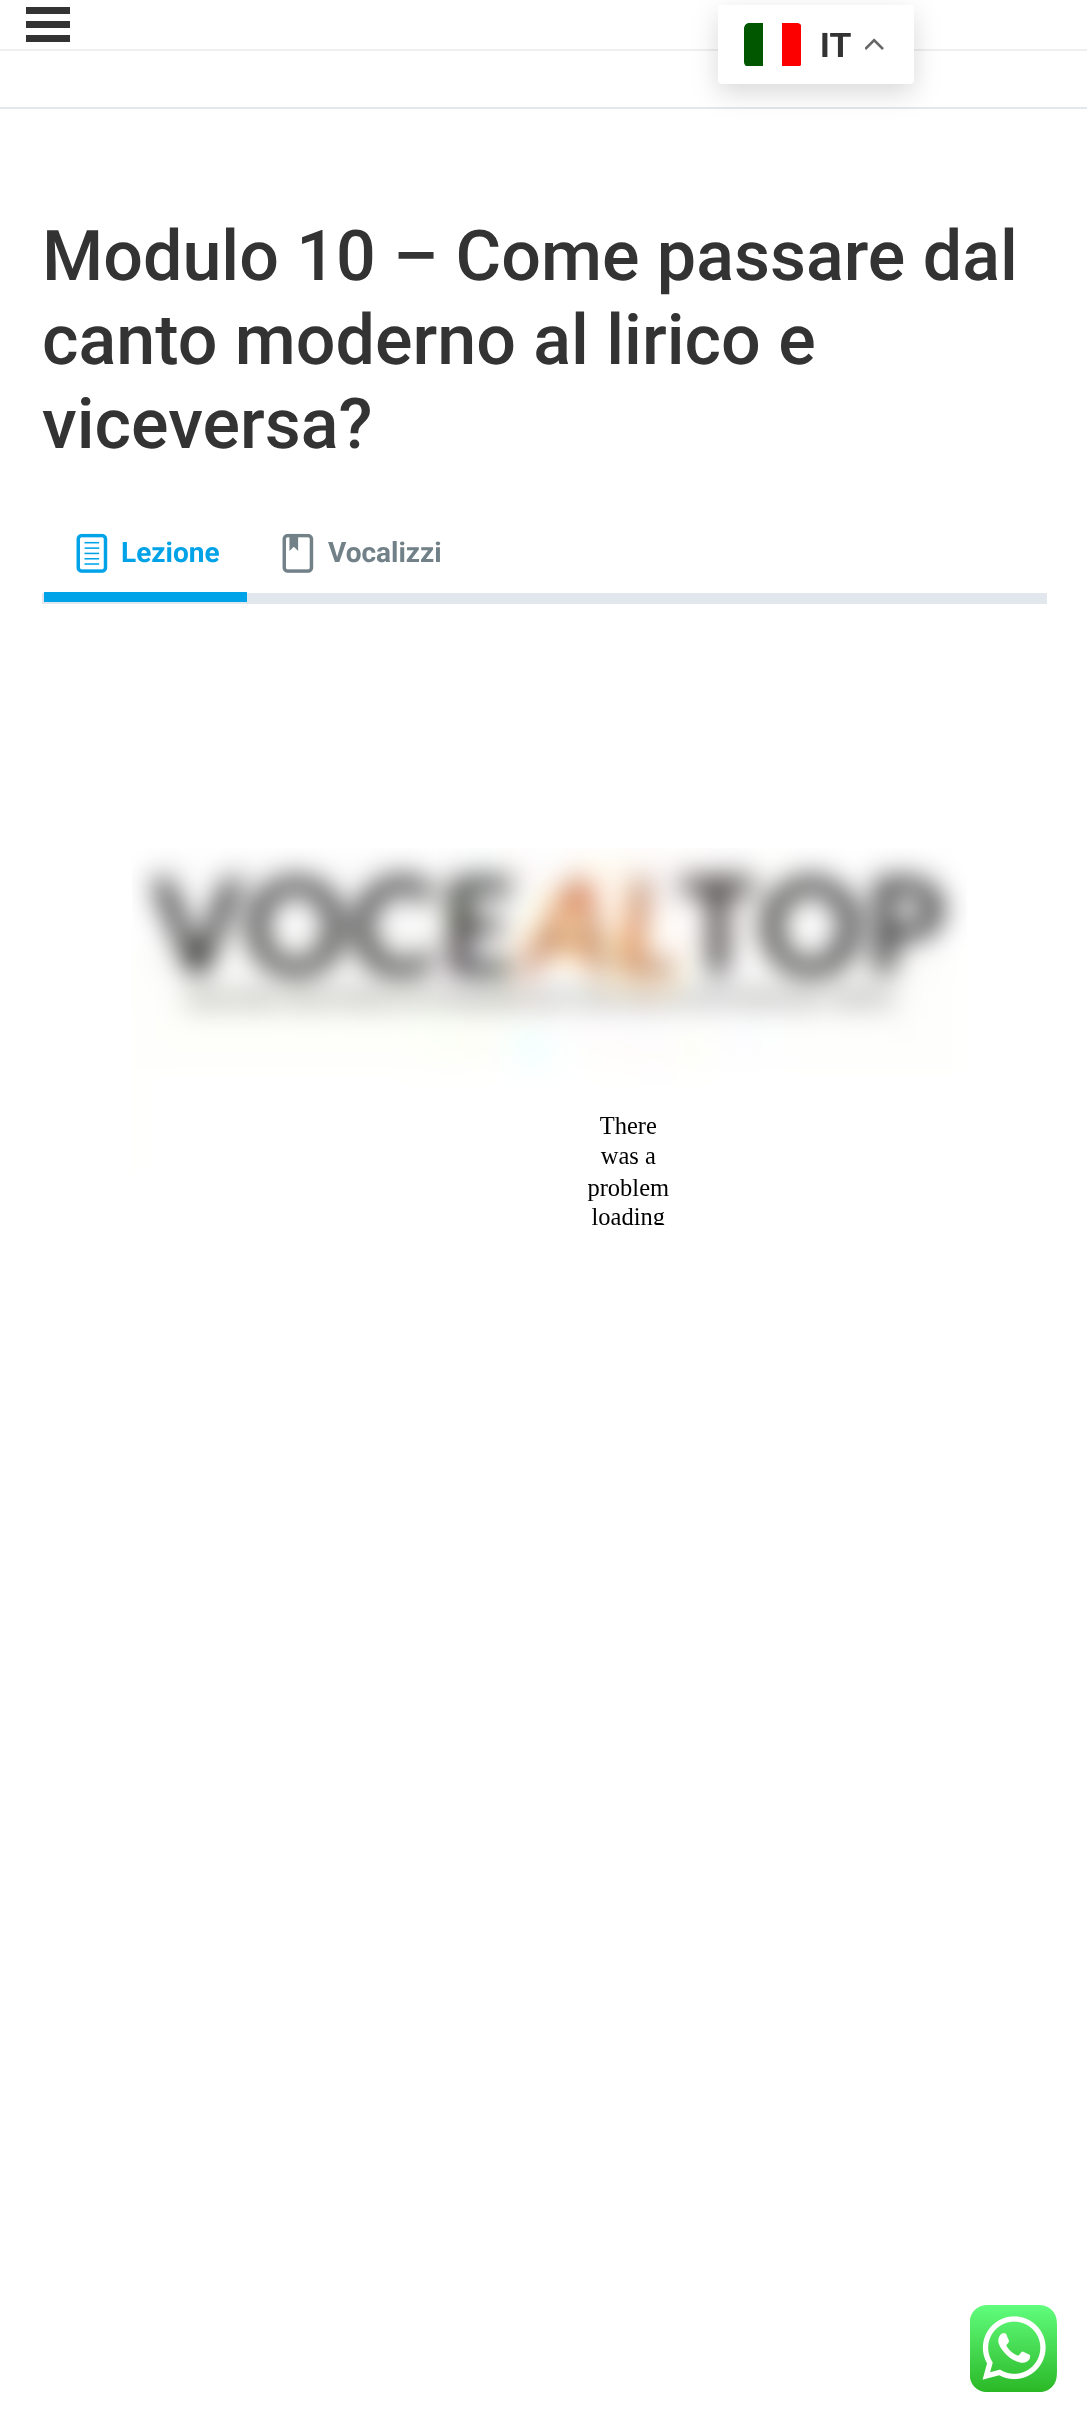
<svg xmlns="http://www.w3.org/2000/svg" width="1087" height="2423">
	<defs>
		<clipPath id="clip1"><rect x="744" y="23" width="58" height="44" rx="5" /></clipPath>
	</defs>
	<rect width="100%" height="100%" fill="#FFFFFF" />
	<rect x="0" y="107" width="1087" height="2" fill="#E2E7ED" />
	<rect x="0" y="49" width="1087" height="2" fill="#EFEFEF" />
	<rect x="718" y="14" width="196" height="79" rx="4" fill="#000000" fill-opacity="0.15" filter="blur(13px)" />
	<rect x="718" y="5" width="196" height="79" rx="4" fill="#FFFFFF" />
	<g clip-path="url(#clip1)">
		<path d="M749 23H763V66H744V28C744 25 746 23 749 23Z" fill="#005700" />
		<rect x="782" y="23" width="19" height="43" fill="#FC0000" />
	</g>
	<text x="820" y="57" font-family="Liberation Sans" font-size="35" font-weight="700" fill="#333333">IT</text>
	<image x="865" y="38" width="19" height="12" href="assets/img1.png" />
	<rect x="26" y="7" width="44" height="7" fill="#333333" />
	<rect x="26" y="21" width="44" height="7" fill="#333333" />
	<rect x="26" y="35" width="44" height="7" fill="#333333" />
	<g font-family="Roboto" font-size="70" font-weight="500" fill="#333333">
		<text x="42" y="280">Modulo 10 – Come passare dal</text>
		<text x="42" y="364">canto moderno al lirico e</text>
		<text x="42" y="448">viceversa?</text>
	</g>
	<image x="76" y="533" width="32" height="40" href="assets/img2.png" />
	<text x="121" y="562" font-family="Roboto" font-size="28" font-weight="700" fill="#00A2E8">Lezione</text>
	<rect x="42" y="593" width="1005" height="11" fill="#E2E7ED" />
	<rect x="44" y="592" width="203" height="10" fill="#00A2E8" />
	<image x="282" y="533" width="32" height="40" href="assets/img3.png" />
	<text x="328" y="562" font-family="Roboto" font-size="28" font-weight="700" fill="#728188">Vocalizzi</text>
	<image x="132" y="848" width="835" height="377" href="assets/img4.png" />
	<image x="970" y="2305" width="87" height="87" href="assets/img5.png" />
</svg>
